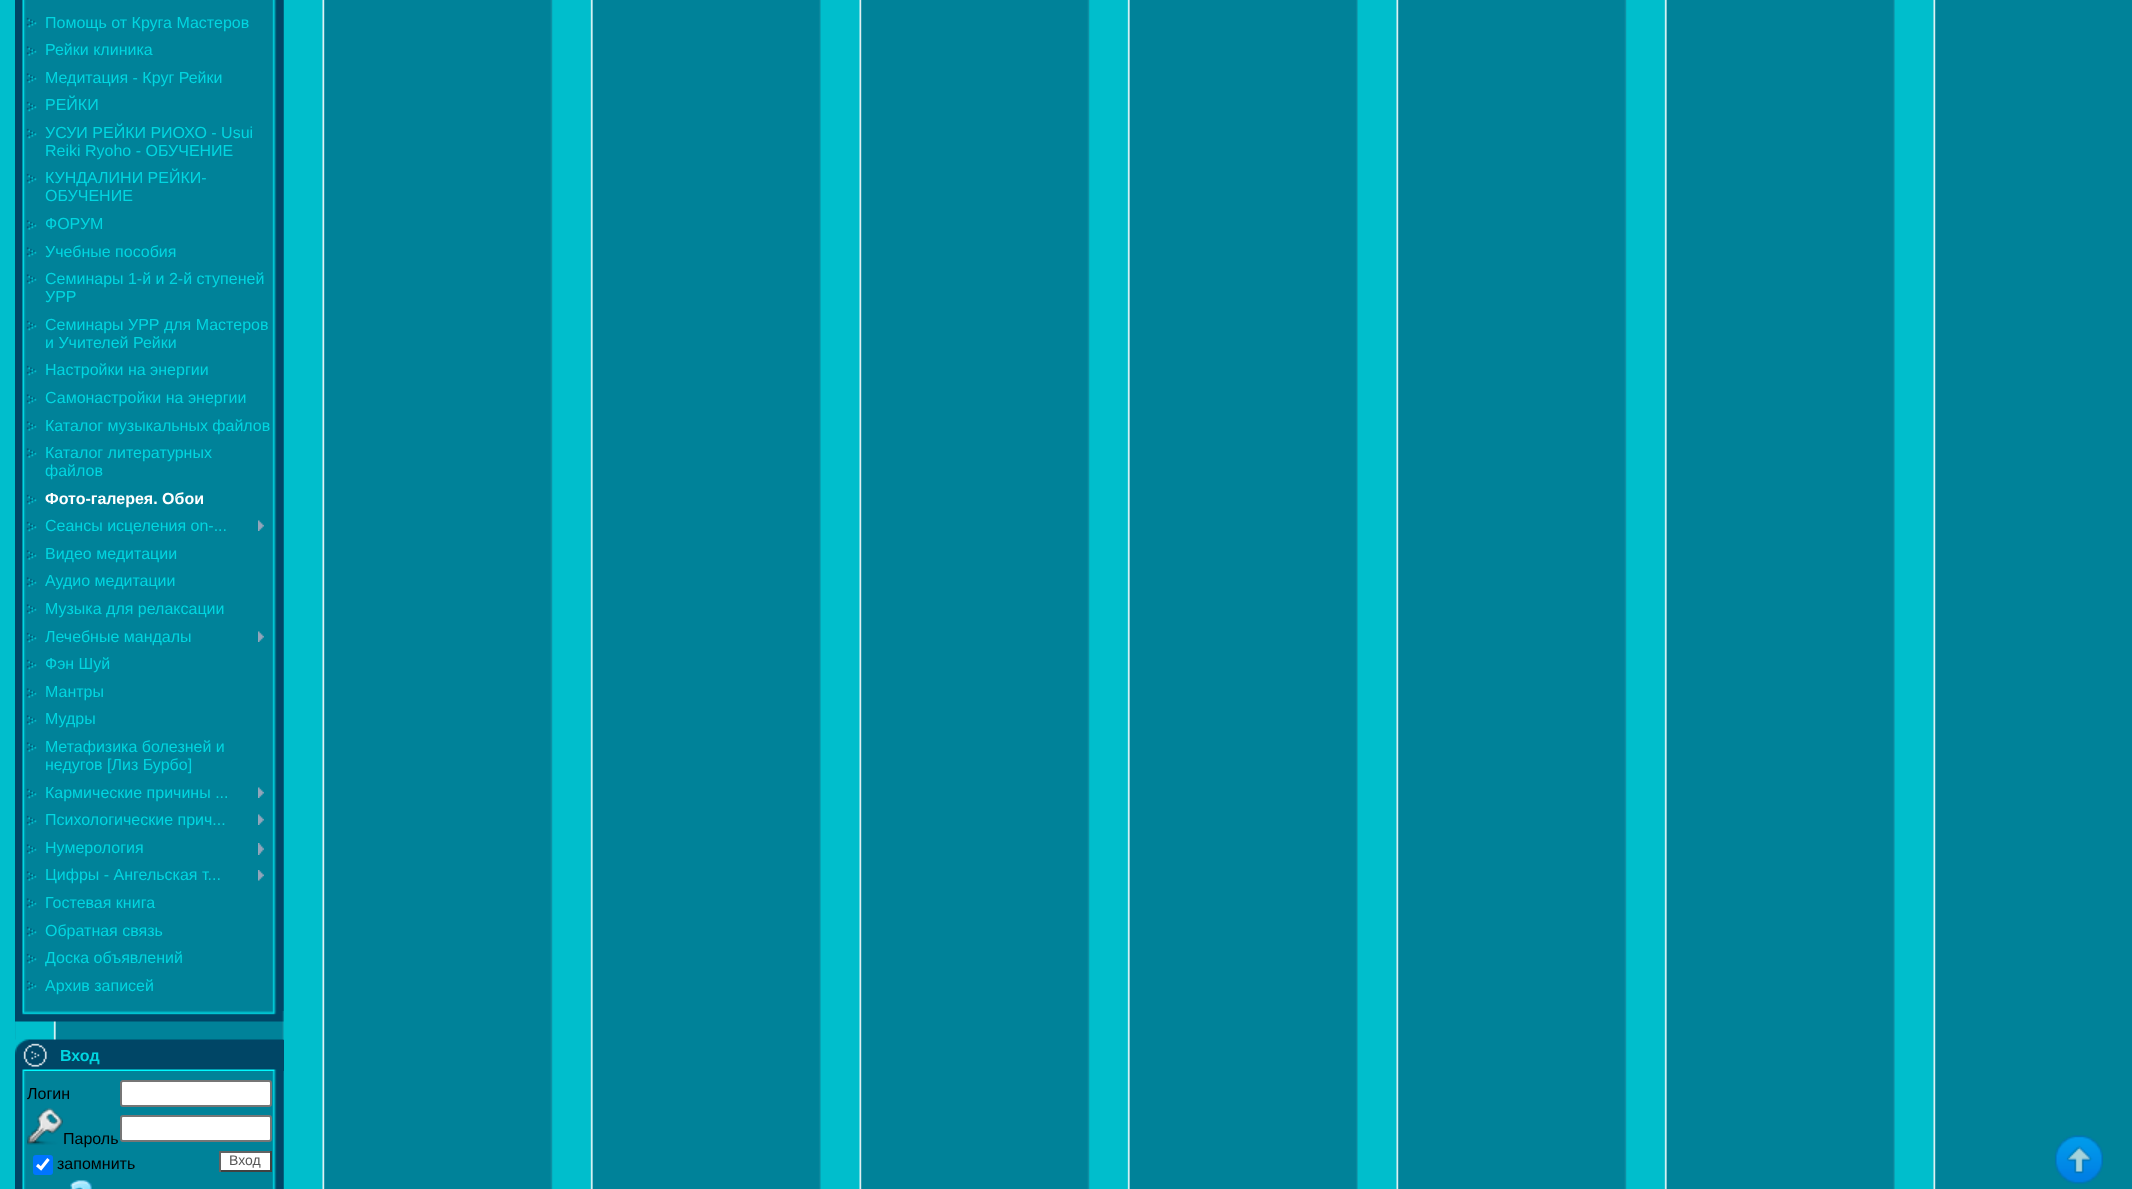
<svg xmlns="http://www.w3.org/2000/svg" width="2132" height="1189">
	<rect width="100%" height="100%" fill="#00BECC" />
	<image x="15" y="0" width="2117" height="1189" href="assets/img1.png" />
	<rect x="283" y="0" width="1" height="1011" fill="#008299" />
	<image x="15" y="0" width="269" height="1011" href="assets/img2.png" />
	<image x="26" y="17" width="11" height="11" href="assets/img3.png" />
	<text x="45" y="28" font-family="Liberation Sans" font-size="16" fill="#00D6E1">Помощь от Круга Мастеров</text>
	<image x="26" y="46" width="11" height="10" href="assets/img4.png" />
	<text x="45" y="55" font-family="Liberation Sans" font-size="16" fill="#00D6E1">Рейки клиника</text>
	<image x="26" y="73" width="11" height="10" href="assets/img4.png" />
	<text x="45" y="83" font-family="Liberation Sans" font-size="16" fill="#00D6E1">Медитация - Круг Рейки</text>
	<image x="26" y="101" width="11" height="11" href="assets/img3.png" />
	<text x="45" y="110" font-family="Liberation Sans" font-size="16" fill="#00D6E1">РЕЙКИ</text>
	<image x="26" y="128" width="11" height="11" href="assets/img3.png" />
	<g font-family="Liberation Sans" font-size="16" fill="#00D6E1">
		<text x="45" y="138">УСУИ РЕЙКИ РИОХО - Usui</text>
		<text x="45" y="156">Reiki Ryoho - ОБУЧЕНИЕ</text>
	</g>
	<image x="26" y="173" width="11" height="11" href="assets/img3.png" />
	<g font-family="Liberation Sans" font-size="16" fill="#00D6E1">
		<text x="45" y="183">КУНДАЛИНИ РЕЙКИ-</text>
		<text x="45" y="201">ОБУЧЕНИЕ</text>
	</g>
	<image x="26" y="220" width="11" height="10" href="assets/img4.png" />
	<text x="45" y="229" font-family="Liberation Sans" font-size="16" fill="#00D6E1">ФОРУМ</text>
	<image x="26" y="247" width="11" height="10" href="assets/img4.png" />
	<text x="45" y="257" font-family="Liberation Sans" font-size="16" fill="#00D6E1">Учебные пособия</text>
	<image x="26" y="274" width="11" height="10" href="assets/img4.png" />
	<g font-family="Liberation Sans" font-size="16" fill="#00D6E1">
		<text x="45" y="284">Семинары 1-й и 2-й ступеней</text>
		<text x="45" y="302">УРР</text>
	</g>
	<image x="26" y="320" width="11" height="11" href="assets/img3.png" />
	<g font-family="Liberation Sans" font-size="16" fill="#00D6E1">
		<text x="45" y="330">Семинары УРР для Мастеров</text>
		<text x="45" y="348">и Учителей Рейки</text>
	</g>
	<image x="26" y="365" width="11" height="11" href="assets/img3.png" />
	<text x="45" y="375" font-family="Liberation Sans" font-size="16" fill="#00D6E1">Настройки на энергии</text>
	<image x="26" y="394" width="11" height="10" href="assets/img4.png" />
	<text x="45" y="403" font-family="Liberation Sans" font-size="16" fill="#00D6E1">Самонастройки на энергии</text>
	<image x="26" y="421" width="11" height="10" href="assets/img4.png" />
	<text x="45" y="431" font-family="Liberation Sans" font-size="16" fill="#00D6E1">Каталог музыкальных файлов</text>
	<image x="26" y="448" width="11" height="10" href="assets/img4.png" />
	<g font-family="Liberation Sans" font-size="16" fill="#00D6E1">
		<text x="45" y="458">Каталог литературных</text>
		<text x="45" y="476">файлов</text>
	</g>
	<image x="26" y="494" width="11" height="11" href="assets/img3.png" />
	<text x="45" y="504" font-family="Liberation Sans" font-size="16" font-weight="700" fill="#FFFFFF">Фото-галерея. Обои</text>
	<image x="26" y="521" width="11" height="11" href="assets/img3.png" />
	<text x="45" y="531" font-family="Liberation Sans" font-size="16" fill="#00D6E1">Сеансы исцеления on-...</text>
	<image x="258" y="520" width="6" height="11" href="assets/img5.png" />
	<image x="26" y="550" width="11" height="10" href="assets/img4.png" />
	<text x="45" y="559" font-family="Liberation Sans" font-size="16" fill="#00D6E1">Видео медитации</text>
	<image x="26" y="577" width="11" height="10" href="assets/img4.png" />
	<text x="45" y="586" font-family="Liberation Sans" font-size="16" fill="#00D6E1">Аудио медитации</text>
	<image x="26" y="604" width="11" height="10" href="assets/img4.png" />
	<text x="45" y="614" font-family="Liberation Sans" font-size="16" fill="#00D6E1">Музыка для релаксации</text>
	<image x="26" y="632" width="11" height="11" href="assets/img3.png" />
	<text x="45" y="642" font-family="Liberation Sans" font-size="16" fill="#00D6E1">Лечебные мандалы</text>
	<image x="258" y="631" width="6" height="11" href="assets/img5.png" />
	<image x="26" y="659" width="11" height="11" href="assets/img3.png" />
	<text x="45" y="669" font-family="Liberation Sans" font-size="16" fill="#00D6E1">Фэн Шуй</text>
	<image x="26" y="688" width="11" height="10" href="assets/img4.png" />
	<text x="45" y="697" font-family="Liberation Sans" font-size="16" fill="#00D6E1">Мантры</text>
	<image x="26" y="715" width="11" height="10" href="assets/img4.png" />
	<text x="45" y="724" font-family="Liberation Sans" font-size="16" fill="#00D6E1">Мудры</text>
	<image x="26" y="742" width="11" height="10" href="assets/img4.png" />
	<g font-family="Liberation Sans" font-size="16" fill="#00D6E1">
		<text x="45" y="752">Mетафизика болезней и</text>
		<text x="45" y="770">недугов [Лиз Бурбо]</text>
	</g>
	<image x="26" y="788" width="11" height="11" href="assets/img3.png" />
	<text x="45" y="798" font-family="Liberation Sans" font-size="16" fill="#00D6E1">Кармические причины ...</text>
	<image x="258" y="787" width="6" height="11" href="assets/img5.png" />
	<image x="26" y="815" width="11" height="11" href="assets/img3.png" />
	<text x="45" y="825" font-family="Liberation Sans" font-size="16" fill="#00D6E1">Психологические прич...</text>
	<image x="258" y="814" width="6" height="11" href="assets/img5.png" />
	<image x="26" y="844" width="11" height="10" href="assets/img4.png" />
	<text x="45" y="853" font-family="Liberation Sans" font-size="16" fill="#00D6E1">Нумерология</text>
	<image x="258" y="843" width="6" height="12" href="assets/img6.png" />
	<image x="26" y="871" width="11" height="10" href="assets/img4.png" />
	<text x="45" y="880" font-family="Liberation Sans" font-size="16" fill="#00D6E1">Цифры - Ангельская т...</text>
	<image x="258" y="870" width="6" height="11" href="assets/img7.png" />
	<image x="26" y="898" width="11" height="10" href="assets/img4.png" />
	<text x="45" y="908" font-family="Liberation Sans" font-size="16" fill="#00D6E1">Гостевая книга</text>
	<image x="26" y="926" width="11" height="11" href="assets/img3.png" />
	<text x="45" y="936" font-family="Liberation Sans" font-size="16" fill="#00D6E1">Обратная связь</text>
	<image x="26" y="953" width="11" height="11" href="assets/img3.png" />
	<text x="45" y="963" font-family="Liberation Sans" font-size="16" fill="#00D6E1">Доска объявлений</text>
	<image x="26" y="980" width="11" height="11" href="assets/img3.png" />
	<text x="45" y="991" font-family="Liberation Sans" font-size="16" fill="#00D6E1">Архив записей</text>
	<image x="15" y="1011" width="269" height="11" href="assets/img8.png" />
	<rect x="283" y="1040" width="1" height="31" fill="#004666" />
	<image x="15" y="1039" width="269" height="32" href="assets/img9.png" />
	<text x="60" y="1061" font-family="Liberation Sans" font-size="16" font-weight="700" fill="#00D6E1">Вход</text>
	<rect x="283" y="1071" width="1" height="118" fill="#008299" />
	<image x="15" y="1071" width="269" height="118" href="assets/img10.png" />
	<text x="27" y="1099" font-family="Liberation Sans" font-size="16" fill="#000000">Логин</text>
	<rect x="121" y="1081" width="150" height="25" rx="2" fill="#FFFFFF" stroke="#767676" stroke-width="2" />
	<image x="27" y="1108" width="36" height="37" href="assets/img11.png" />
	<text x="63" y="1144" font-family="Liberation Sans" font-size="16" fill="#000000">Пароль</text>
	<rect x="121" y="1116" width="150" height="25" rx="2" fill="#FFFFFF" stroke="#767676" stroke-width="2" />
	<rect x="33" y="1155" width="20" height="20" rx="3" fill="#0075FF" />
	<path d="M37 1165L41 1168.5L48.5 1159" fill="none" stroke="#FFFFFF" stroke-width="3.1" />
	<text x="57" y="1169" font-family="Liberation Sans" font-size="16" fill="#000000">запомнить</text>
	<rect x="221" y="1153" width="49" height="17" fill="#FFFFFF" />
	<rect x="219" y="1151" width="53" height="2" fill="#636363" />
	<rect x="270" y="1151" width="2" height="21" fill="#424242" />
	<rect x="219" y="1170" width="53" height="2" fill="#424242" />
	<rect x="219" y="1151" width="2" height="21" fill="#636363" />
	<text x="229" y="1165" font-family="Liberation Sans" font-size="14" fill="#575757">Вход</text>
	<image x="70" y="1180" width="22" height="9" href="assets/img12.png" />
	<image x="2055" y="1135" width="48" height="49" href="assets/img13.png" />
</svg>
